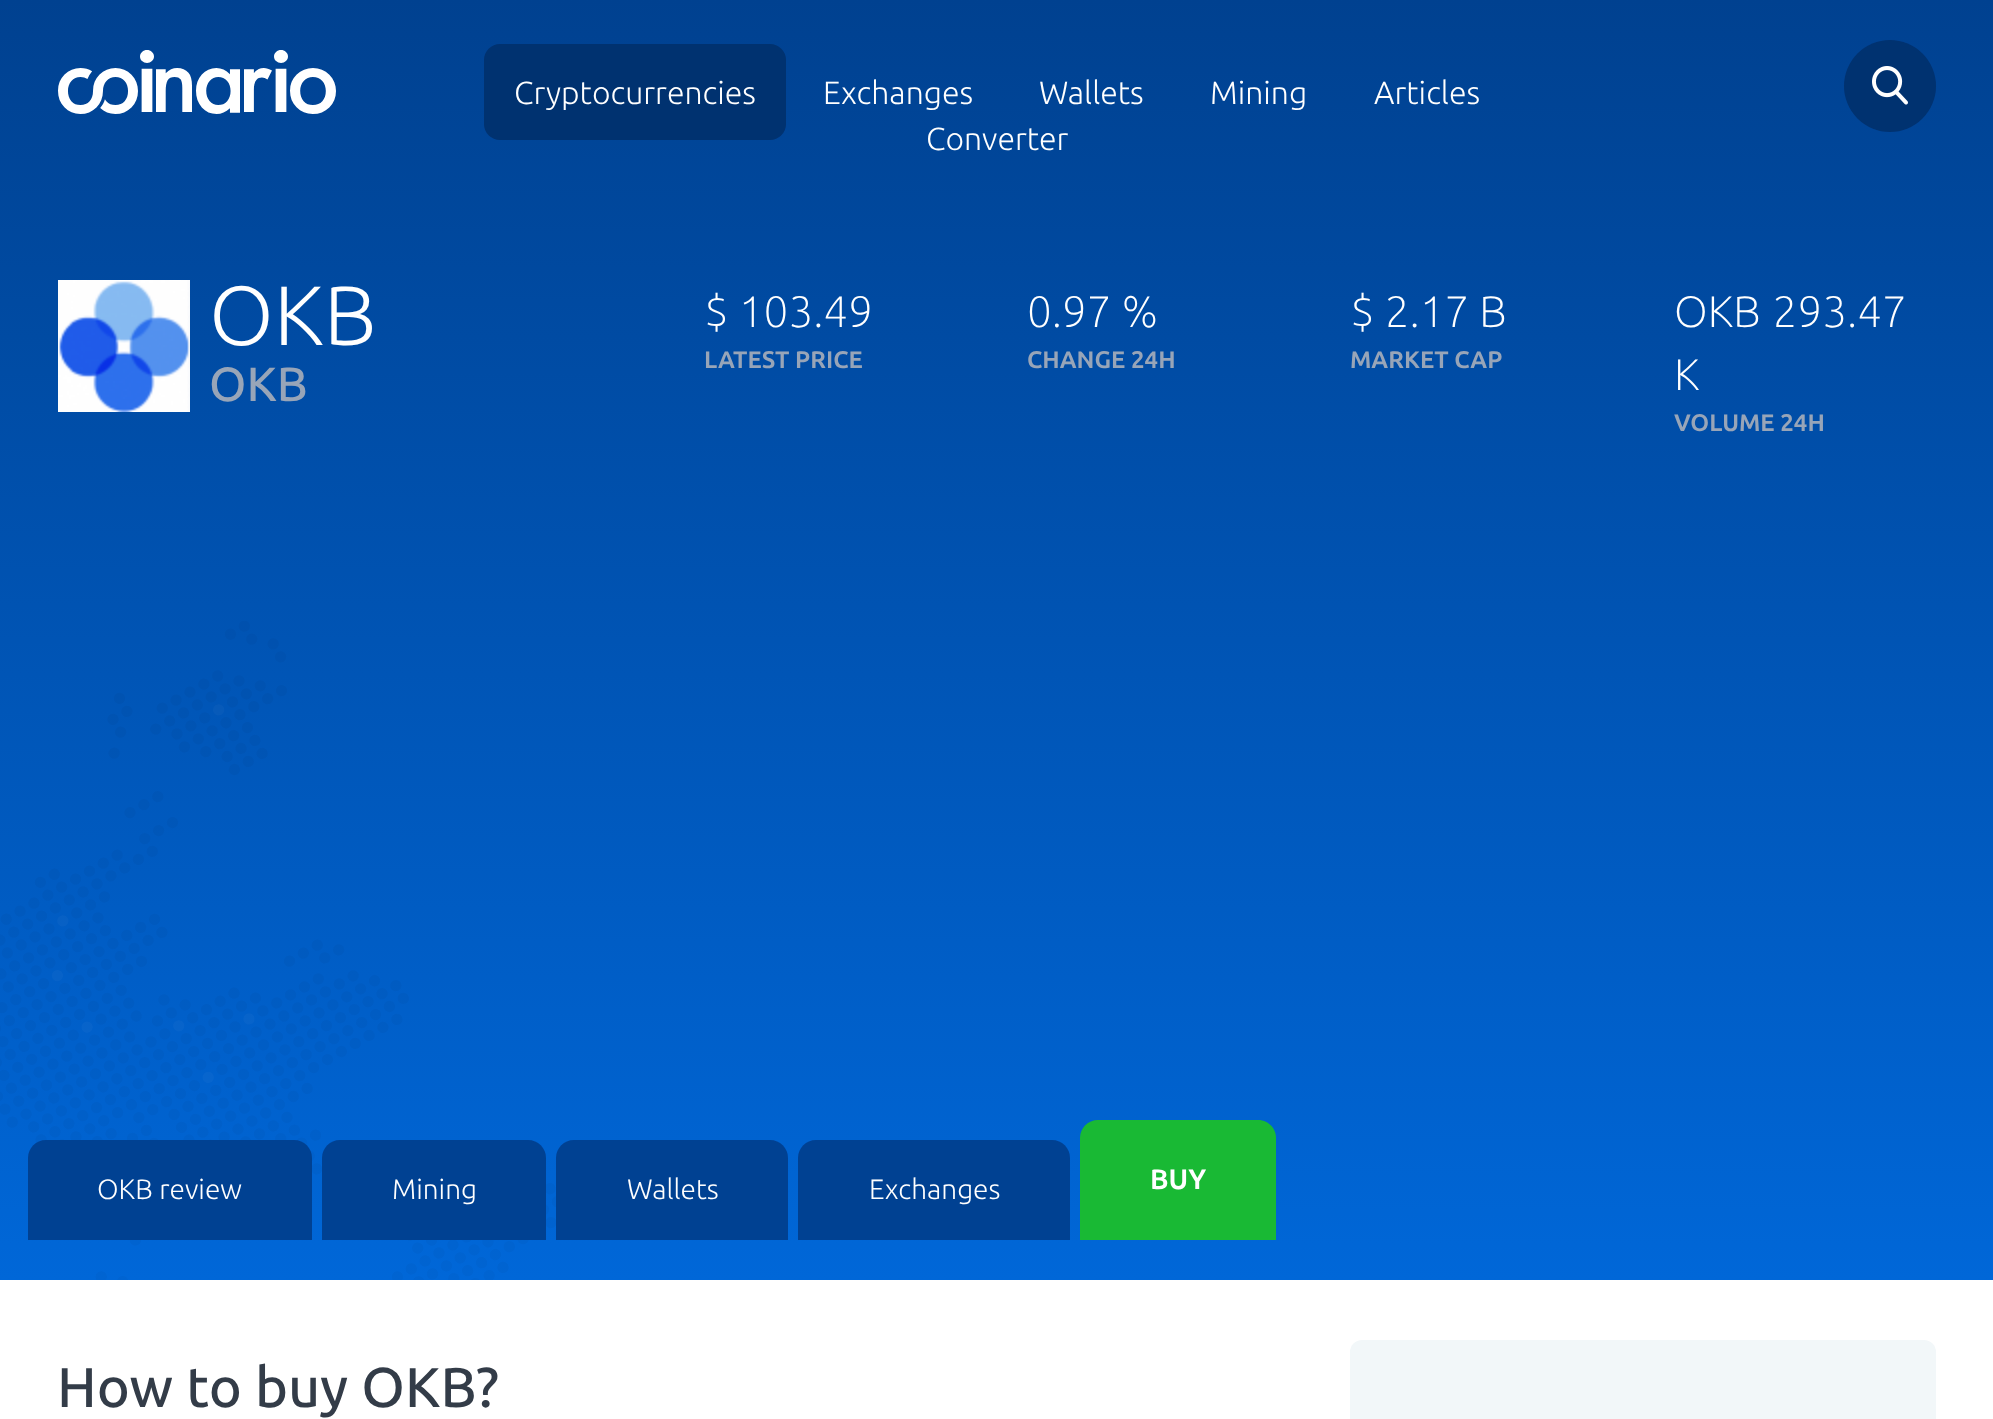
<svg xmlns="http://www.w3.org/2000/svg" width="1993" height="1419">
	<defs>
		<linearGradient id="g1" gradientUnits="userSpaceOnUse" x1="997" y1="1280" x2="997" y2="0"><stop offset="0" stop-color="#0067D8" /><stop offset="1" stop-color="#004190" /></linearGradient>
	</defs>
	<rect width="100%" height="100%" fill="#FFFFFF" />
	<rect x="0" y="0" width="1993" height="1280" fill="url(#g1)" />
	<image x="58" y="50" width="278" height="64" href="assets/img1.png" />
	<rect x="484" y="44" width="302" height="96" rx="16" fill="#003270" />
	<g font-family="Ubuntu" font-size="32" font-weight="300" fill="#FFFFFF">
		<text x="514" y="104">Cryptocurrencies</text>
		<text x="823" y="104">Exchanges</text>
		<text x="1039" y="104">Wallets</text>
		<text x="1210" y="104">Mining</text>
		<text x="1374" y="104">Articles</text>
		<text x="926" y="150">Converter</text>
	</g>
	<circle cx="1890" cy="86" r="46" fill="#003270" />
	<image x="1872" y="66" width="36" height="39" href="assets/img2.png" />
	<image x="58" y="280" width="132" height="132" href="assets/img3.png" />
	<text x="209" y="345" font-family="Ubuntu" font-size="84" font-weight="300" fill="#FFFFFF">OKB</text>
	<text x="209" y="401" font-family="Ubuntu" font-size="48" font-weight="500" fill="#98A5B8">OKB</text>
	<text x="704" y="327" font-family="Ubuntu" font-size="44" font-weight="200" fill="#FFFFFF">$ 103.49</text>
	<text x="704" y="368" font-family="Ubuntu" font-size="24" font-weight="700" fill="#98A5B8">LATEST PRICE</text>
	<text x="1027" y="327" font-family="Ubuntu" font-size="44" font-weight="200" fill="#FFFFFF">0.97 %</text>
	<text x="1027" y="368" font-family="Ubuntu" font-size="24" font-weight="700" fill="#98A5B8">CHANGE 24H</text>
	<text x="1350" y="327" font-family="Ubuntu" font-size="44" font-weight="200" fill="#FFFFFF">$ 2.17 B</text>
	<text x="1350" y="368" font-family="Ubuntu" font-size="24" font-weight="700" fill="#98A5B8">MARKET CAP</text>
	<g font-family="Ubuntu" font-size="44" font-weight="200" fill="#FFFFFF">
		<text x="1674" y="327" word-spacing="2">OKB 293.47</text>
		<text x="1674" y="390">K</text>
	</g>
	<text x="1674" y="431" font-family="Ubuntu" font-size="24" font-weight="700" fill="#98A5B8">VOLUME 24H</text>
	<image x="0" y="621" width="556" height="659" href="assets/img4.png" />
	<path d="M46 1140H294C304 1140 312 1148 312 1158V1240H28V1158C28 1148 36 1140 46 1140Z" fill="#004192" />
	<text x="97" y="1199" font-family="Ubuntu" font-size="28" font-weight="300" fill="#FFFFFF">OKB review</text>
	<path d="M340 1140H528C538 1140 546 1148 546 1158V1240H322V1158C322 1148 330 1140 340 1140Z" fill="#004192" />
	<text x="392" y="1199" font-family="Ubuntu" font-size="28" font-weight="300" fill="#FFFFFF">Mining</text>
	<path d="M574 1140H770C780 1140 788 1148 788 1158V1240H556V1158C556 1148 564 1140 574 1140Z" fill="#004192" />
	<text x="627" y="1199" font-family="Ubuntu" font-size="28" font-weight="300" fill="#FFFFFF">Wallets</text>
	<path d="M816 1140H1052C1062 1140 1070 1148 1070 1158V1240H798V1158C798 1148 806 1140 816 1140Z" fill="#004192" />
	<text x="869" y="1199" font-family="Ubuntu" font-size="28" font-weight="300" fill="#FFFFFF">Exchanges</text>
	<path d="M1098 1120H1258C1268 1120 1276 1128 1276 1138V1240H1080V1138C1080 1128 1088 1120 1098 1120Z" fill="#19B934" />
	<text x="1150" y="1189" font-family="Ubuntu" font-size="28" font-weight="700" fill="#FFFFFF">BUY</text>
	<text x="57" y="1407" font-family="Ubuntu" font-size="56" font-weight="500" fill="#333C48">How to buy OKB?</text>
	<rect x="1350" y="1340" width="586" height="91" rx="12" fill="#F2F7F9" />
</svg>
